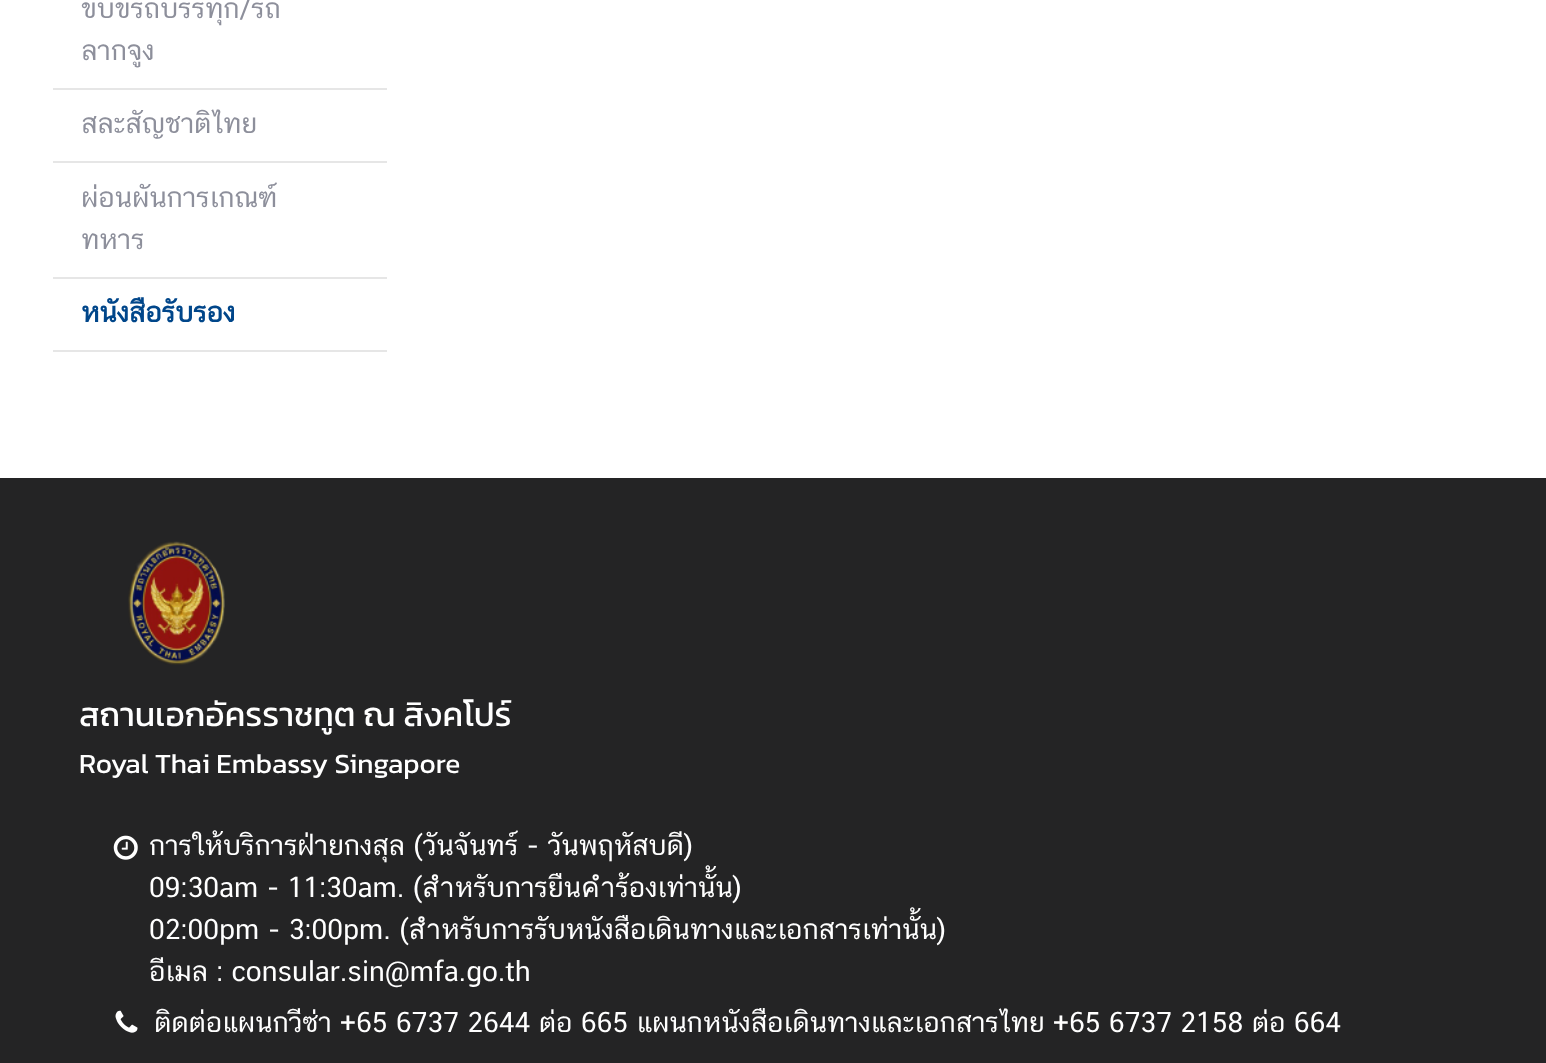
<svg xmlns="http://www.w3.org/2000/svg" width="1546" height="1063">
	<rect width="100%" height="100%" fill="#FFFFFF" />
	<g font-family="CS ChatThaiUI" font-size="28" fill="#8D8F9B">
		<text x="81" y="18">ขับขี่รถบรรทุก/รถ</text>
		<text x="81" y="60">ลากจูง</text>
	</g>
	<rect x="53" y="88" width="334" height="2" fill="#E6E6E6" />
	<text x="81" y="133" font-family="CS ChatThaiUI" font-size="28" fill="#8D8F9B">สละสัญชาติไทย</text>
	<rect x="53" y="161" width="334" height="2" fill="#E6E6E6" />
	<g font-family="CS ChatThaiUI" font-size="28" fill="#8D8F9B">
		<text x="81" y="207">ผ่อนผันการเกณฑ์</text>
		<text x="81" y="249">ทหาร</text>
	</g>
	<rect x="53" y="277" width="334" height="2" fill="#E6E6E6" />
	<text x="81" y="322" font-family="CS ChatThaiUI" font-size="28" font-weight="700" fill="#00468A">หนังสือรับรอง</text>
	<rect x="53" y="350" width="334" height="2" fill="#E6E6E6" />
	<rect x="0" y="478" width="1546" height="585" fill="#242425" />
	<image x="128" y="541" width="97" height="124" href="assets/img1.png" />
	<text x="79" y="726" font-family="Kanit" font-size="33.6" fill="#FFFFFF">สถานเอกอัครราชทูต ณ สิงคโปร์</text>
	<text x="79" y="773" font-family="Kanit" font-size="28" fill="#FFFFFF">Royal Thai Embassy Singapore</text>
	<image x="113" y="835" width="25" height="25" href="assets/img2.png" />
	<g font-family="CS ChatThaiUI" font-size="28" fill="#FFFFFF">
		<text x="149" y="855">การให้บริการฝ่ายกงสุล (วันจันทร์ - วันพฤหัสบดี)</text>
		<text x="149" y="897">09:30am - 11:30am. (สำหรับการยืนคำร้องเท่านั้น)</text>
		<text x="149" y="939">02:00pm - 3:00pm. (สำหรับการรับหนังสือเดินทางและเอกสารเท่านั้น)</text>
		<text x="149" y="981">อีเมล : consular.sin@mfa.go.th</text>
	</g>
	<image x="115" y="1010" width="23" height="23" href="assets/img3.png" />
	<text x="154" y="1032" font-family="CS ChatThaiUI" font-size="28" fill="#FFFFFF">ติดต่อแผนกวีซ่า +65 6737 2644 ต่อ 665 แผนกหนังสือเดินทางและเอกสารไทย +65 6737 2158 ต่อ 664</text>
</svg>
